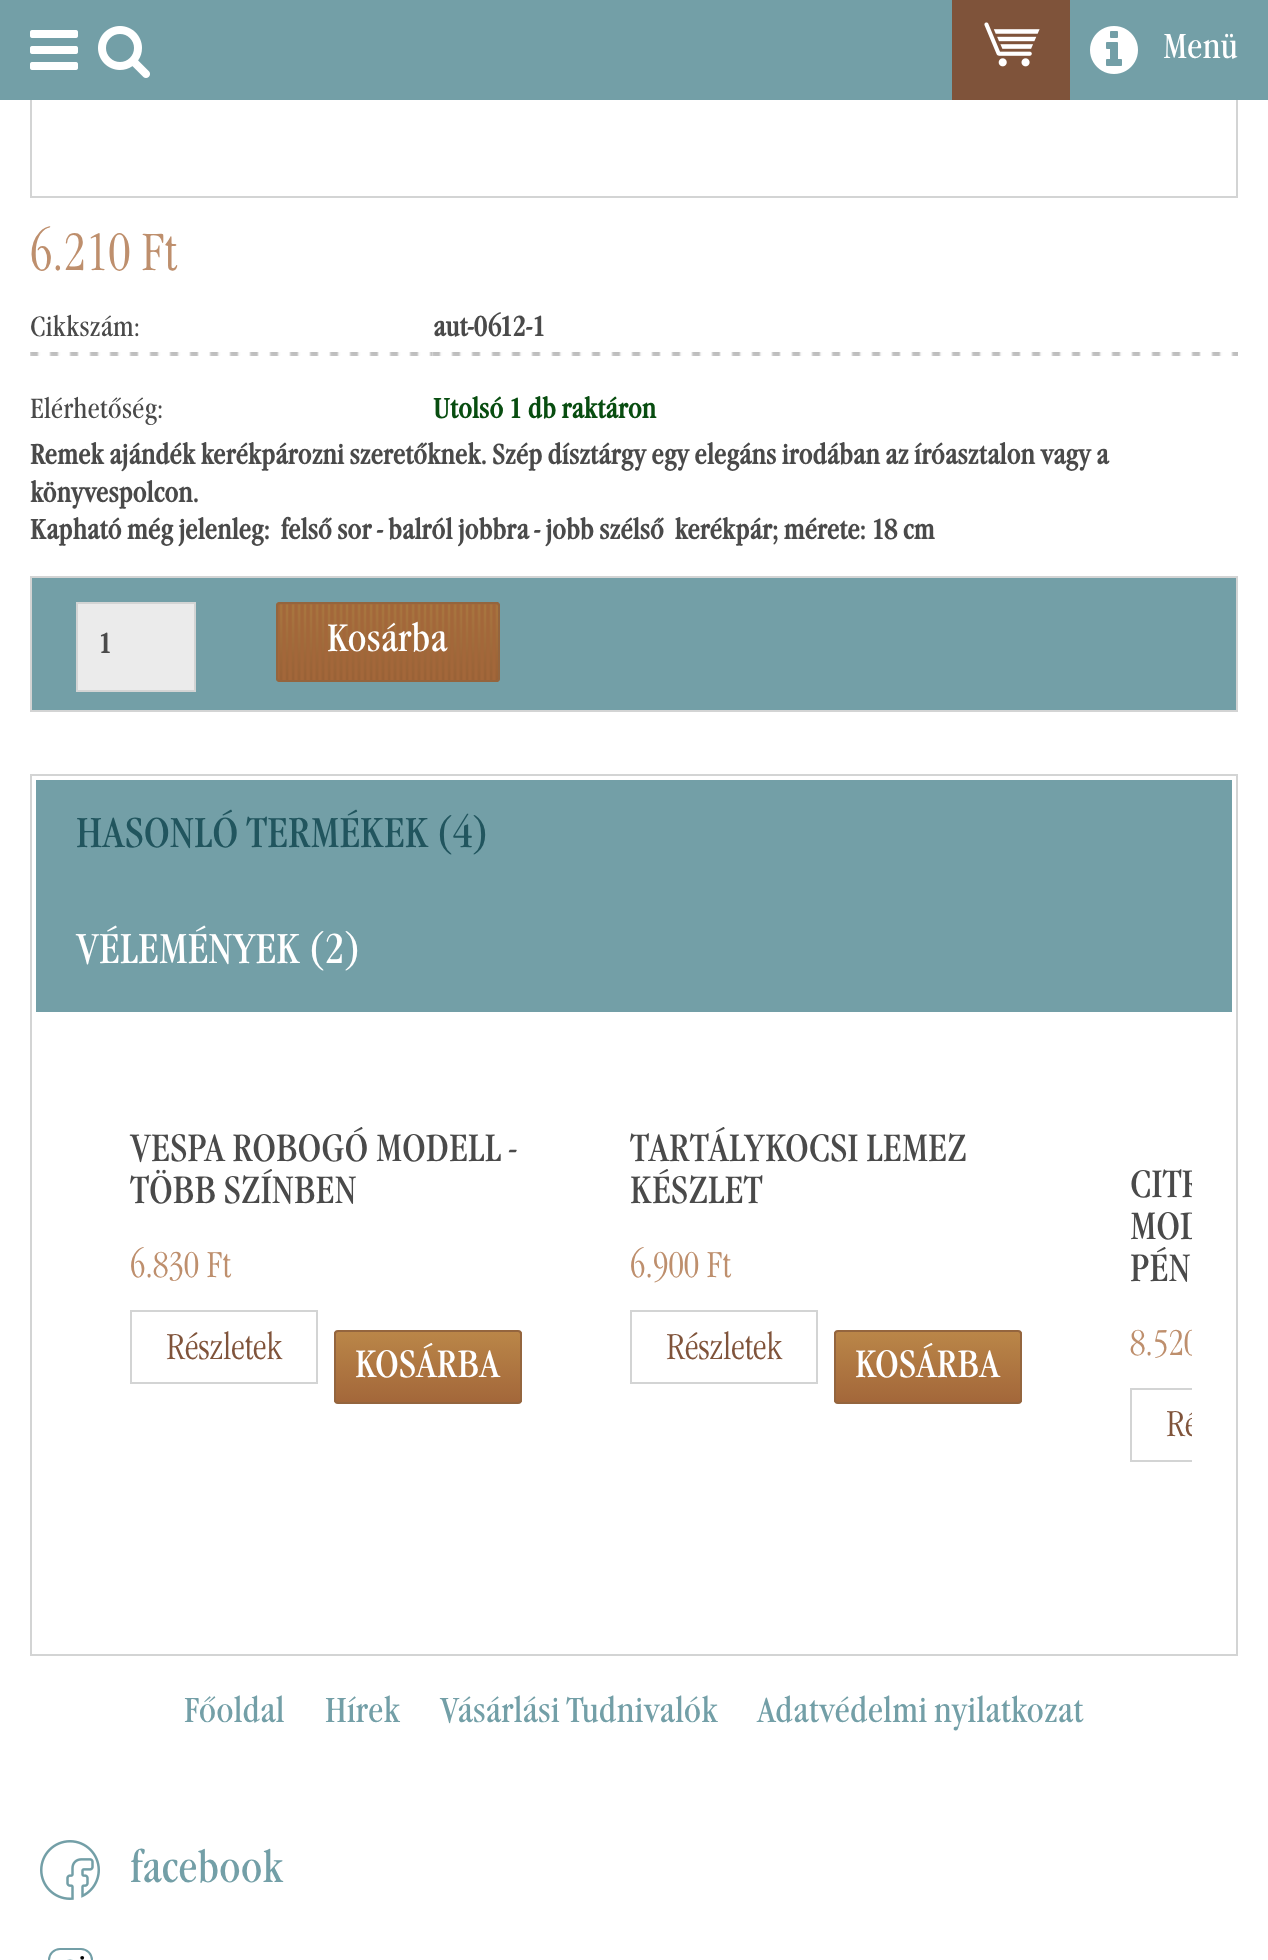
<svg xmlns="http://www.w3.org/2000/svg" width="1268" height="1960">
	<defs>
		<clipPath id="clip1"><rect x="334" y="1330" width="188" height="74" rx="4" /></clipPath>
		<linearGradient id="g1" gradientUnits="userSpaceOnUse" x1="428" y1="1332" x2="428" y2="1402"><stop offset="0" stop-color="#BA8648" /><stop offset="1" stop-color="#A3673A" /></linearGradient>
		<clipPath id="clip2"><rect x="834" y="1330" width="188" height="74" rx="4" /></clipPath>
		<linearGradient id="g2" gradientUnits="userSpaceOnUse" x1="928" y1="1332" x2="928" y2="1402"><stop offset="0" stop-color="#BA8648" /><stop offset="1" stop-color="#A3673A" /></linearGradient>
		<clipPath id="clip3"><rect x="76" y="1052" width="1116" height="488" /></clipPath>
	</defs>
	<rect width="100%" height="100%" fill="#FFFFFF" />
	<rect x="31" y="-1" width="1206" height="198" fill="none" stroke="#D3D4D4" stroke-width="2" />
	<rect x="0" y="0" width="1268" height="100" fill="#739FA7" />
	<image x="30" y="30" width="48" height="40" href="assets/img1.png" />
	<image x="98" y="26" width="52" height="52" href="assets/img2.png" />
	<rect x="952" y="0" width="118" height="100" fill="#7F533A" />
	<image x="984" y="22" width="56" height="45" href="assets/img3.png" />
	<image x="1090" y="26" width="48" height="48" href="assets/img4.png" />
	<text x="1163" y="58" font-family="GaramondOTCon" font-size="36" fill="#FFFFFF">Menü</text>
	<text x="30" y="270" font-family="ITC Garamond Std" font-size="57.5" font-weight="300" fill="#BE8F6D">6.210 Ft</text>
	<text x="30" y="336" font-family="GaramondOTCon" font-size="28.8" fill="#4A4A4A">Cikkszám:</text>
	<text x="433" y="336" font-family="GaramondOTCon" font-size="28.8" font-weight="700" fill="#4A4A4A">aut-0612-1</text>
	<image x="30" y="352" width="402" height="4" href="assets/img5.png" />
	<text x="30" y="418" font-family="GaramondOTCon" font-size="28.8" fill="#4A4A4A">Elérhetőség:</text>
	<image x="432" y="352" width="806" height="4" href="assets/img6.png" />
	<text x="433" y="418" font-family="GaramondOTCon" font-size="28.8" font-weight="700" fill="#084D10">Utolsó 1 db raktáron</text>
	<g font-family="GaramondOTCon" font-size="28.8" font-weight="700" fill="#4A4A4A">
		<text x="30" y="464">Remek ajándék kerékpározni szeretőknek. Szép dísztárgy egy elegáns irodában az íróasztalon vagy a</text>
		<text x="30" y="502">könyvespolcon.</text>
		<text x="30" y="539" xml:space="preserve">Kapható még jelenleg:  felső sor - balról jobbra - jobb szélső  kerékpár; mérete: 18 cm</text>
	</g>
	<rect x="31" y="577" width="1206" height="134" fill="#739FA7" stroke="#D3D4D4" stroke-width="2" />
	<rect x="77" y="603" width="118" height="88" fill="#EBEBEB" stroke="#D3D4D4" stroke-width="2" />
	<text x="98" y="653" font-family="GaramondOTCon" font-size="28.8" font-weight="700" fill="#4A4A4A">1</text>
	<rect x="276" y="602" width="224" height="80" rx="4" fill="#A3673A" />
	<image x="276" y="602" width="223" height="80" href="assets/img7.png" />
	<rect x="277" y="603" width="222" height="78" rx="3" fill="none" stroke="#94653E" stroke-width="2" />
	<text x="327" y="651" font-family="GaramondOTCon" font-size="39.5" fill="#FFFFFF">Kosárba</text>
	<rect x="31" y="775" width="1206" height="880" fill="none" stroke="#D3D4D4" stroke-width="2" />
	<rect x="36" y="780" width="1196" height="232" fill="#739FA7" />
	<g font-family="GaramondOTCon" font-size="43.25" fill="#21555E">
		<text x="76" y="847">HASONLÓ TERMÉKEK</text>
		<text x="438" y="847">(4)</text>
	</g>
	<g font-family="GaramondOTCon" font-size="43.25" fill="#FFFFFF">
		<text x="76" y="963">VÉLEMÉNYEK</text>
		<text x="310" y="963">(2)</text>
	</g>
	<g font-family="GaramondOTCon" font-size="39.5" fill="#4A4A4A">
		<text x="130" y="1161">VESPA ROBOGÓ MODELL -</text>
		<text x="130" y="1203">TÖBB SZÍNBEN</text>
	</g>
	<text x="130" y="1277" font-family="ITC Garamond Std" font-size="39.5" font-weight="300" fill="#BE8F6D">6.830 Ft</text>
	<rect x="131" y="1311" width="186" height="72" fill="none" stroke="#D3D4D4" stroke-width="2" />
	<text x="166" y="1359" font-family="ITC Garamond Std" font-size="39.5" font-weight="300" fill="#80543B">Részletek</text>
	<g clip-path="url(#clip1)">
		<rect x="334" y="1332" width="188" height="70" fill="url(#g1)" />
	</g>
	<rect x="335" y="1331" width="186" height="72" rx="3" fill="none" stroke="#94653E" stroke-width="2" />
	<text x="355" y="1377" font-family="GaramondOTCon" font-size="39.5" fill="#FFFFFF">KOSÁRBA</text>
	<g font-family="GaramondOTCon" font-size="39.5" fill="#4A4A4A">
		<text x="630" y="1161">TARTÁLYKOCSI LEMEZ</text>
		<text x="630" y="1203">KÉSZLET</text>
	</g>
	<text x="630" y="1277" font-family="ITC Garamond Std" font-size="39.5" font-weight="300" fill="#BE8F6D">6.900 Ft</text>
	<rect x="631" y="1311" width="186" height="72" fill="none" stroke="#D3D4D4" stroke-width="2" />
	<text x="666" y="1359" font-family="ITC Garamond Std" font-size="39.5" font-weight="300" fill="#80543B">Részletek</text>
	<g clip-path="url(#clip2)">
		<rect x="834" y="1332" width="188" height="70" fill="url(#g2)" />
	</g>
	<rect x="835" y="1331" width="186" height="72" rx="3" fill="none" stroke="#94653E" stroke-width="2" />
	<text x="855" y="1377" font-family="GaramondOTCon" font-size="39.5" fill="#FFFFFF">KOSÁRBA</text>
	<g clip-path="url(#clip3)">
		<g font-family="GaramondOTCon" font-size="39.5" fill="#4A4A4A">
			<text x="1130" y="1197">CITR</text>
			<text x="1130" y="1239">MOD</text>
		</g>
	</g>
	<text x="1130" y="1281" font-family="GaramondOTCon" font-size="39.5" fill="#4A4A4A">PÉN</text>
	<g clip-path="url(#clip3)">
		<text x="1130" y="1355" font-family="ITC Garamond Std" font-size="39.5" font-weight="300" fill="#BE8F6D">8.520</text>
		<rect x="1131" y="1389" width="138" height="72" fill="none" stroke="#D3D4D4" stroke-width="2" />
		<text x="1166" y="1436" font-family="ITC Garamond Std" font-size="39.5" font-weight="300" fill="#80543B">Ré</text>
	</g>
	<g font-family="GaramondOTCon" font-size="36" fill="#739FA7">
		<text x="184" y="1722">Főoldal</text>
		<text x="325" y="1722">Hírek</text>
		<text x="440" y="1722">Vásárlási Tudnivalók</text>
		<text x="757" y="1722">Adatvédelmi nyilatkozat</text>
	</g>
	<image x="40" y="1840" width="60" height="60" href="assets/img8.png" />
	<text x="130" y="1882" font-family="GaramondOTCon" font-size="45" fill="#739FA7">facebook</text>
	<circle cx="70" cy="1970" r="9.5" fill="none" stroke="#739FA7" stroke-width="1.9" />
	<rect x="49" y="1949" width="43" height="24" rx="11" fill="none" stroke="#739FA7" stroke-width="2" />
	<circle cx="82.2" cy="1957.8" r="1.9" fill="#000000" />
</svg>
